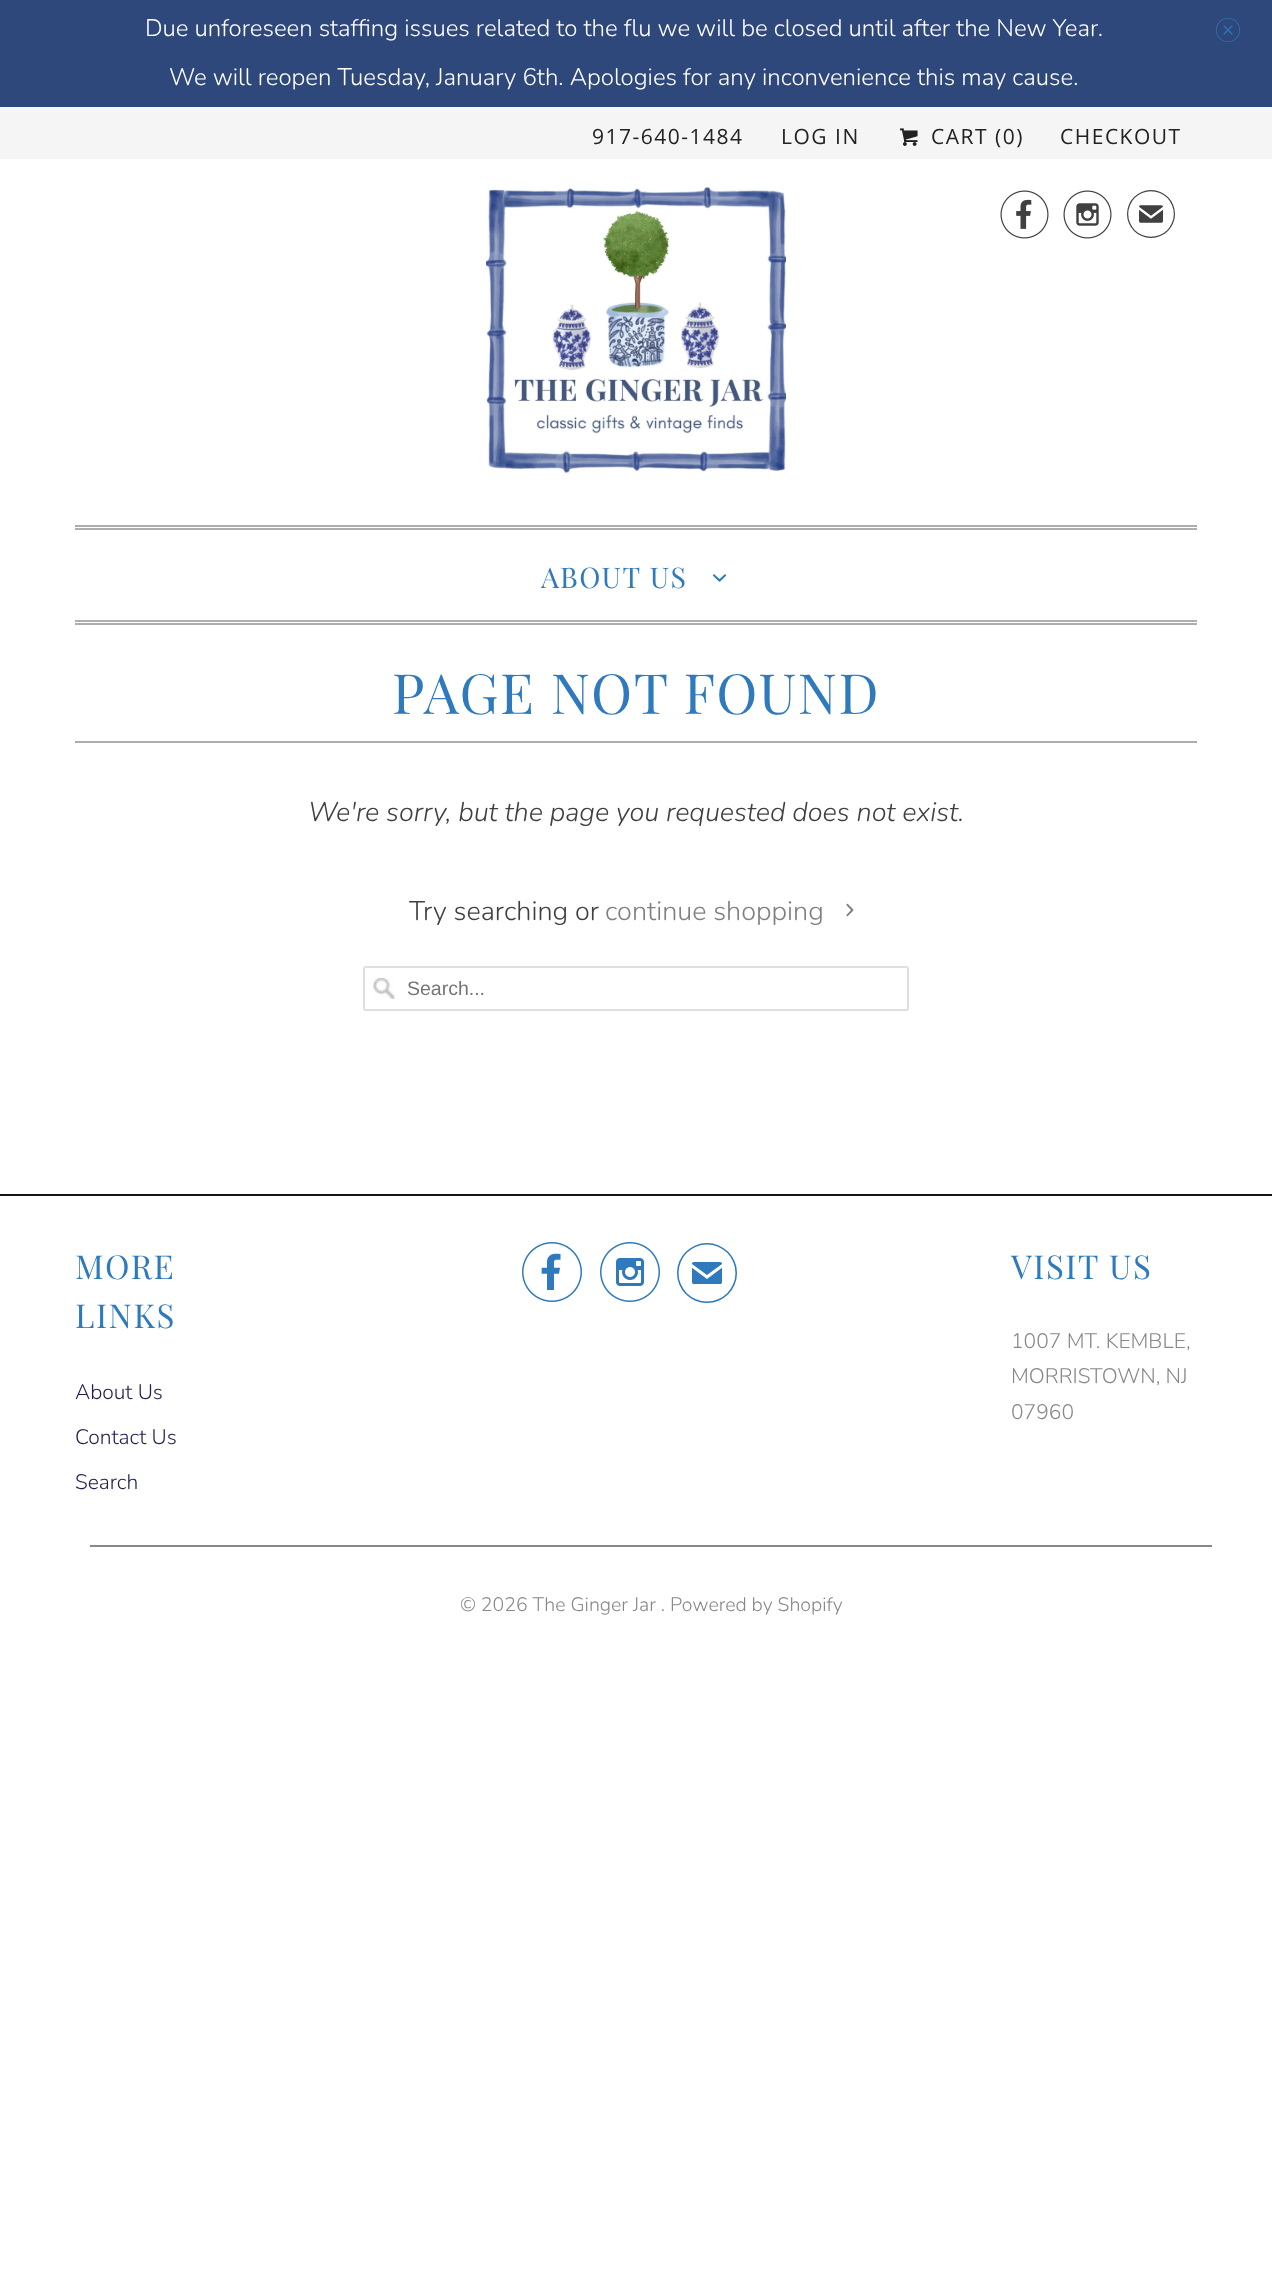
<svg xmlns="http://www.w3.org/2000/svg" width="1272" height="2284">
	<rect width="100%" height="100%" fill="#FFFFFF" />
	<rect x="0" y="0" width="1272" height="107" fill="#2F487B" />
	<g font-family="Nunito" font-size="24" font-weight="300" fill="#FFFFFF">
		<text x="145" y="36">Due unforeseen staffing issues related to the flu we will be closed until after the New Year.</text>
		<text x="169" y="85">We will reopen Tuesday, January 6th. Apologies for any inconvenience this may cause.</text>
	</g>
	<text x="1216" y="42" font-family="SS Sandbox" font-size="24" fill="#2F7ABD">␡</text>
	<rect x="0" y="107" width="1272" height="52" fill="#F5F5F5" />
	<g font-family="Open Sans" font-size="21" letter-spacing="1.5" fill="#222222">
		<text x="592" y="144">917-640-1484</text>
		<text x="781" y="144">LOG IN</text>
	</g>
	<image x="900" y="128" width="18" height="18" href="assets/img1.png" />
	<g font-family="Open Sans" font-size="21" letter-spacing="1.5" fill="#222222">
		<text x="931" y="144">CART (0)</text>
		<text x="1060" y="144">CHECKOUT</text>
	</g>
	<image x="486" y="187" width="300" height="286" href="assets/img2.png" />
	<image x="1000" y="190" width="49" height="49" href="assets/img3.png" />
	<image x="1063" y="190" width="49" height="49" href="assets/img4.png" />
	<text x="1127" y="238" font-family="SS Sandbox" font-size="48" fill="#404040">✉</text>
	<rect x="75" y="525" width="1122" height="2" fill="#AEAEB0" />
	<rect x="75" y="528" width="1122" height="2" fill="#AEAEB0" />
	<rect x="75" y="620" width="1122" height="2" fill="#AEAEB0" />
	<rect x="75" y="623" width="1122" height="2" fill="#AEAEB0" />
	<text x="541" y="588" font-family="Playfair Display" font-size="28.5" letter-spacing="1.5" fill="#2F7ABD">ABOUT US</text>
	<image x="712" y="574" width="15" height="8" href="assets/img5.png" />
	<rect x="75" y="741" width="1122" height="2" fill="#AEAEB0" />
	<text x="392" y="714" font-family="Playfair Display" font-size="55.5" letter-spacing="1.5" fill="#2F7ABD">PAGE NOT FOUND</text>
	<text x="308" y="821" font-family="Nunito" font-size="27" font-weight="300" font-style="italic" fill="#404040">We're sorry, but the page you requested does not exist.</text>
	<text x="409" y="920" font-family="Nunito" font-size="27" font-weight="300" fill="#404040">Try searching or</text>
	<text x="605" y="920" font-family="Nunito" font-size="27" font-weight="300" fill="#808080">continue shopping</text>
	<image x="846" y="903" width="8" height="14" href="assets/img6.png" />
	<image x="373" y="978" width="22" height="21" href="assets/img7.png" />
	<rect x="364" y="967" width="544" height="43" rx="2" fill="none" stroke="#DFDFDF" stroke-width="2" />
	<text x="407" y="995" font-family="Liberation Sans" font-size="19.5" fill="#757575">Search...</text>
	<rect x="0" y="1194" width="1272" height="2" fill="#161616" />
	<g font-family="Playfair Display" font-size="33" letter-spacing="1.5" fill="#2F7ABD">
		<text x="75" y="1279">MORE</text>
		<text x="75" y="1328">LINKS</text>
	</g>
	<g font-family="Nunito" font-size="21" font-weight="300" fill="#1F214A">
		<text x="75" y="1399">About Us</text>
		<text x="75" y="1444">Contact Us</text>
		<text x="75" y="1489">Search</text>
	</g>
	<image x="522" y="1242" width="60" height="60" href="assets/img8.png" />
	<image x="600" y="1242" width="60" height="60" href="assets/img9.png" />
	<text x="677" y="1303" font-family="SS Sandbox" font-size="60" fill="#2F7ABD">✉</text>
	<text x="1011" y="1279" font-family="Playfair Display" font-size="33" letter-spacing="1.5" fill="#2F7ABD">VISIT US</text>
	<g font-family="Nunito" font-size="21" font-weight="300" fill="#888888">
		<text x="1011" y="1348">1007 MT. KEMBLE,</text>
		<text x="1011" y="1383">MORRISTOWN, NJ</text>
		<text x="1011" y="1419">07960</text>
	</g>
	<rect x="90" y="1545" width="1122" height="2" fill="#888888" />
	<text x="460" y="1611" font-family="Nunito" font-size="19.5" font-weight="300" fill="#888888">© 2026 The Ginger Jar . Powered by Shopify</text>
</svg>
